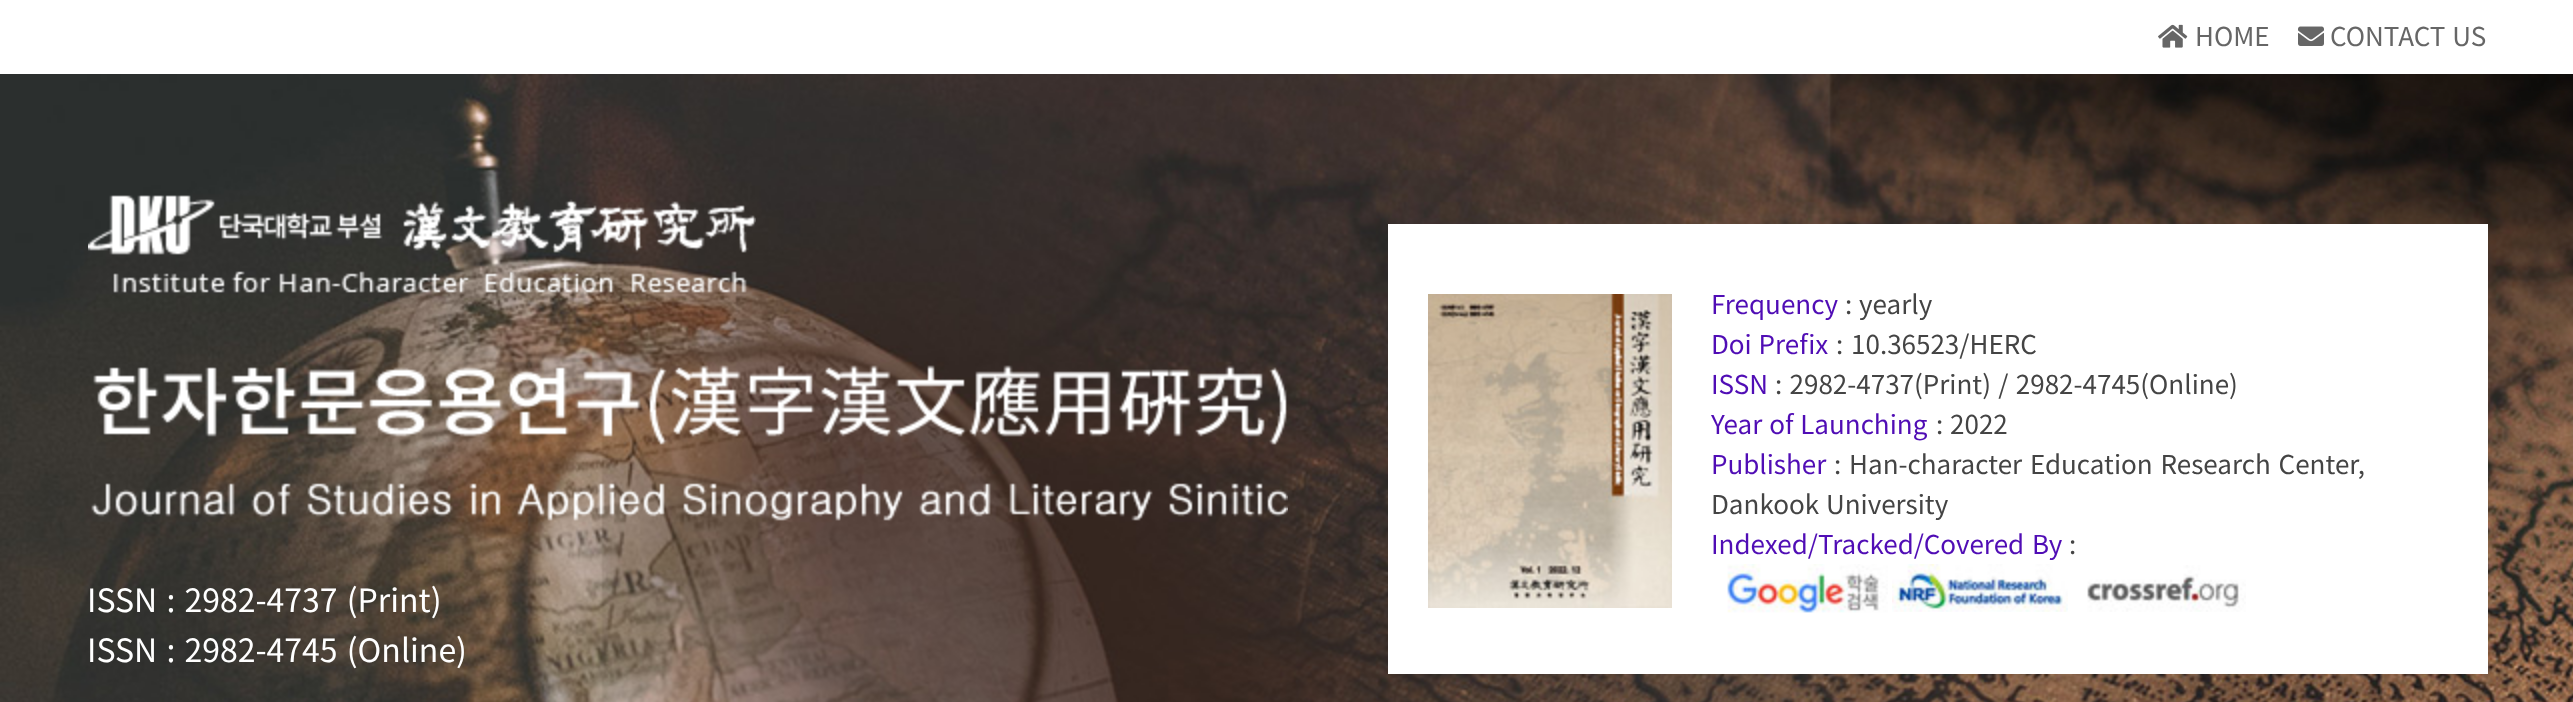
<svg xmlns="http://www.w3.org/2000/svg" width="2573" height="702">
	<rect width="100%" height="100%" fill="#FFFFFF" />
	<image x="2158" y="24" width="30" height="24" href="assets/img1.png" />
	<text x="2195" y="46" font-family="Noto Sans KR" font-size="26" fill="#666666">HOME</text>
	<image x="2298" y="26" width="26" height="20" href="assets/img2.png" />
	<text x="2330" y="46" word-spacing="1" font-family="Noto Sans KR" font-size="26" fill="#666666">CONTACT US</text>
	<image x="0" y="74" width="2573" height="628" href="assets/img3.png" />
	<rect x="1388" y="224" width="1100" height="450" fill="#FFFFFF" />
	<image x="1428" y="294" width="244" height="314" href="assets/img4.png" />
	<text x="1711" y="314" font-family="Noto Sans KR" font-size="26" fill="#500DB5">Frequency</text>
	<text x="1845" y="314" word-spacing="1" font-family="Noto Sans KR" font-size="26" fill="#444444">: yearly</text>
	<text x="1711" y="354" word-spacing="1" font-family="Noto Sans KR" font-size="26" fill="#500DB5">Doi Prefix</text>
	<text x="1836" y="354" word-spacing="2" font-family="Noto Sans KR" font-size="26" fill="#444444">: 10.36523/HERC</text>
	<text x="1711" y="394" font-family="Noto Sans KR" font-size="26" fill="#500DB5">ISSN</text>
	<text x="1775" y="394" word-spacing="1.5" font-family="Noto Sans KR" font-size="26" fill="#444444">: 2982-4737(Print) / 2982-4745(Online)</text>
	<text x="1711" y="434" word-spacing="1" font-family="Noto Sans KR" font-size="26" fill="#500DB5">Year of Launching</text>
	<text x="1936" y="434" word-spacing="1" font-family="Noto Sans KR" font-size="26" fill="#444444">: 2022</text>
	<text x="1711" y="474" font-family="Noto Sans KR" font-size="26" fill="#500DB5">Publisher</text>
	<g font-family="Noto Sans KR" font-size="26" fill="#444444">
		<text x="1834" y="474" word-spacing="2">: Han-character Education Research Center,</text>
		<text x="1711" y="514" word-spacing="1">Dankook University</text>
	</g>
	<text x="1711" y="554" word-spacing="2" font-family="Noto Sans KR" font-size="26" fill="#500DB5">Indexed/Tracked/Covered By</text>
	<text x="2069" y="554" font-family="Noto Sans KR" font-size="26" fill="#444444">:</text>
	<image x="1727" y="564" width="161" height="49" href="assets/img5.png" />
	<image x="1892" y="564" width="176" height="48" href="assets/img6.png" />
	<image x="2087" y="565" width="159" height="47" href="assets/img7.png" />
	<image x="88" y="195" width="668" height="98" href="assets/img8.png" />
	<image x="91" y="365" width="1197" height="156" href="assets/img9.png" />
	<g font-family="Noto Sans KR" font-size="32" fill="#FFFFFF">
		<text x="87" y="612" word-spacing="2">ISSN : 2982-4737 (Print)</text>
		<text x="87" y="662" word-spacing="2">ISSN : 2982-4745 (Online)</text>
	</g>
</svg>
